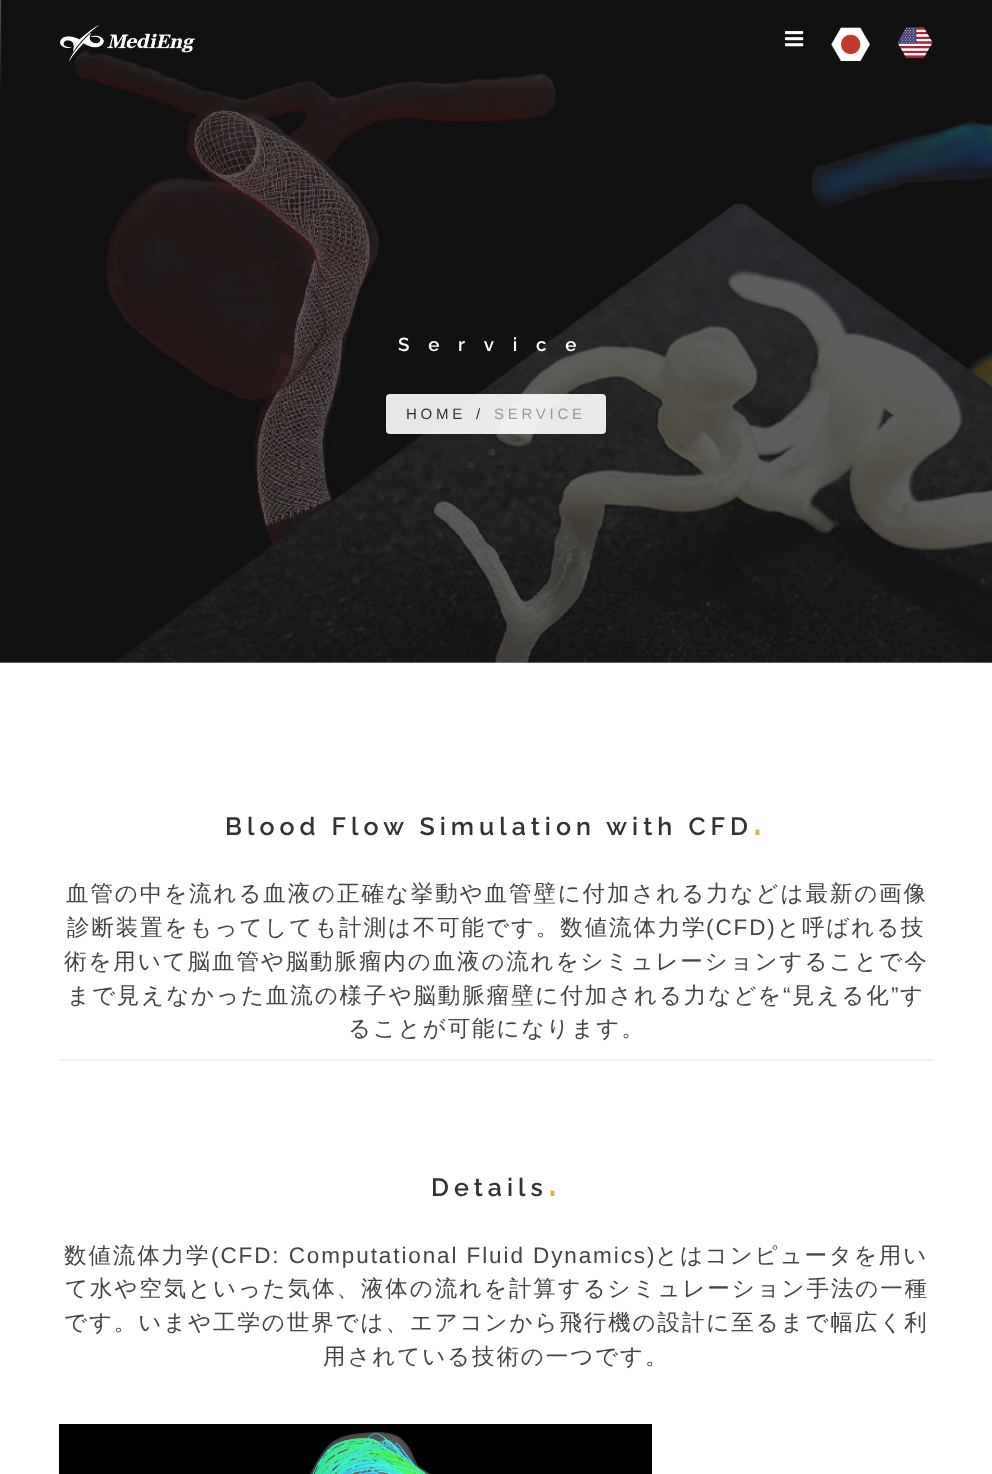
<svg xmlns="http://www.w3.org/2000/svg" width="992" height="1474">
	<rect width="100%" height="100%" fill="#FFFFFF" />
	<rect x="0" y="662" width="992" height="1" fill="#A1A1A1" />
	<image x="0" y="0" width="992" height="663" href="assets/img5.png" />
	<image x="60" y="25" width="135" height="37" href="assets/img1.png" />
	<image x="785" y="31" width="19" height="16" href="assets/img2.png" />
	<image x="831" y="27" width="39" height="34" href="assets/img3.png" />
	<image x="897" y="27" width="36" height="31" href="assets/img4.png" />
	<text x="398" y="351" font-family="Raleway" font-size="18.75" font-weight="600" letter-spacing="18.75" fill="#FFFFFF">Service</text>
	<rect x="386" y="394" width="220" height="40" rx="4" fill="#FFFFFF" fill-opacity="0.9" />
	<g font-family="Liberation Sans" font-size="15" letter-spacing="3.75" fill="#323232">
		<text x="406" y="419">HOME</text>
		<text x="476" y="419">/</text>
	</g>
	<text x="494" y="419" font-family="Liberation Sans" font-size="15" letter-spacing="3.75" fill="#999999">SERVICE</text>
	<text x="225" y="835" font-family="Raleway" font-size="25" font-weight="600" letter-spacing="5" fill="#323232">Blood Flow Simulation with CFD</text>
	<text x="753" y="835" font-family="Raleway" font-size="42" font-weight="600" letter-spacing="5" fill="#E6AE49">.</text>
	<g font-family="WenQuanYi Zen Hei" font-size="22.5" font-weight="500" letter-spacing="1.9" fill="#444444">
		<text x="66" y="901">血管の中を流れる血液の正確な挙動や血管壁に付加される力などは最新の画像</text>
		<text x="67" y="935">診断装置をもってしても計測は不可能です。数値流体力学</text>
	</g>
	<text x="706" y="935" font-family="Liberation Sans" font-size="22.5" letter-spacing="1.9" fill="#444444">(CFD)</text>
	<g font-family="WenQuanYi Zen Hei" font-size="22.5" font-weight="500" letter-spacing="1.9" fill="#444444">
		<text x="777" y="935">と呼ばれる技</text>
		<text x="64" y="969">術を用いて脳血管や脳動脈瘤内の血液の流れをシミュレーションすることで今</text>
		<text x="67" y="1003">まで見えなかった血流の様子や脳動脈瘤壁に付加される力などを</text>
	</g>
	<text x="783" y="1003" font-family="Liberation Sans" font-size="22.5" letter-spacing="1.9" fill="#444444">“</text>
	<text x="792" y="1003" font-family="WenQuanYi Zen Hei" font-size="22.5" font-weight="500" letter-spacing="1.9" fill="#444444">見える化</text>
	<text x="891" y="1003" font-family="Liberation Sans" font-size="22.5" letter-spacing="1.9" fill="#444444">”</text>
	<g font-family="WenQuanYi Zen Hei" font-size="22.5" font-weight="500" letter-spacing="1.9" fill="#444444">
		<text x="900" y="1003">す</text>
		<text x="348" y="1036">ることが可能になります。</text>
	</g>
	<rect x="59" y="1059" width="875" height="2" fill="#F1F1F1" />
	<text x="431" y="1196" font-family="Raleway" font-size="25" font-weight="600" letter-spacing="5" fill="#323232">Details</text>
	<text x="548" y="1196" font-family="Raleway" font-size="42" font-weight="600" letter-spacing="5" fill="#E6AE49">.</text>
	<text x="64" y="1263" font-family="WenQuanYi Zen Hei" font-size="22.5" font-weight="500" letter-spacing="1.9" fill="#444444">数値流体力学</text>
	<text x="211" y="1263" font-family="Liberation Sans" font-size="22.5" letter-spacing="1.9" fill="#444444">(CFD: Computational Fluid Dynamics)</text>
	<g font-family="WenQuanYi Zen Hei" font-size="22.5" font-weight="500" letter-spacing="1.9" fill="#444444">
		<text x="655" y="1263">とはコンピュータを用い</text>
		<text x="65" y="1296">て水や空気といった気体、液体の流れを計算するシミュレーション手法の一種</text>
		<text x="64" y="1330">です。いまや工学の世界では、エアコンから飛行機の設計に至るまで幅広く利</text>
		<text x="323" y="1364">用されている技術の一つです。</text>
	</g>
	<image x="59" y="1424" width="593" height="50" href="assets/img6.png" />
</svg>
